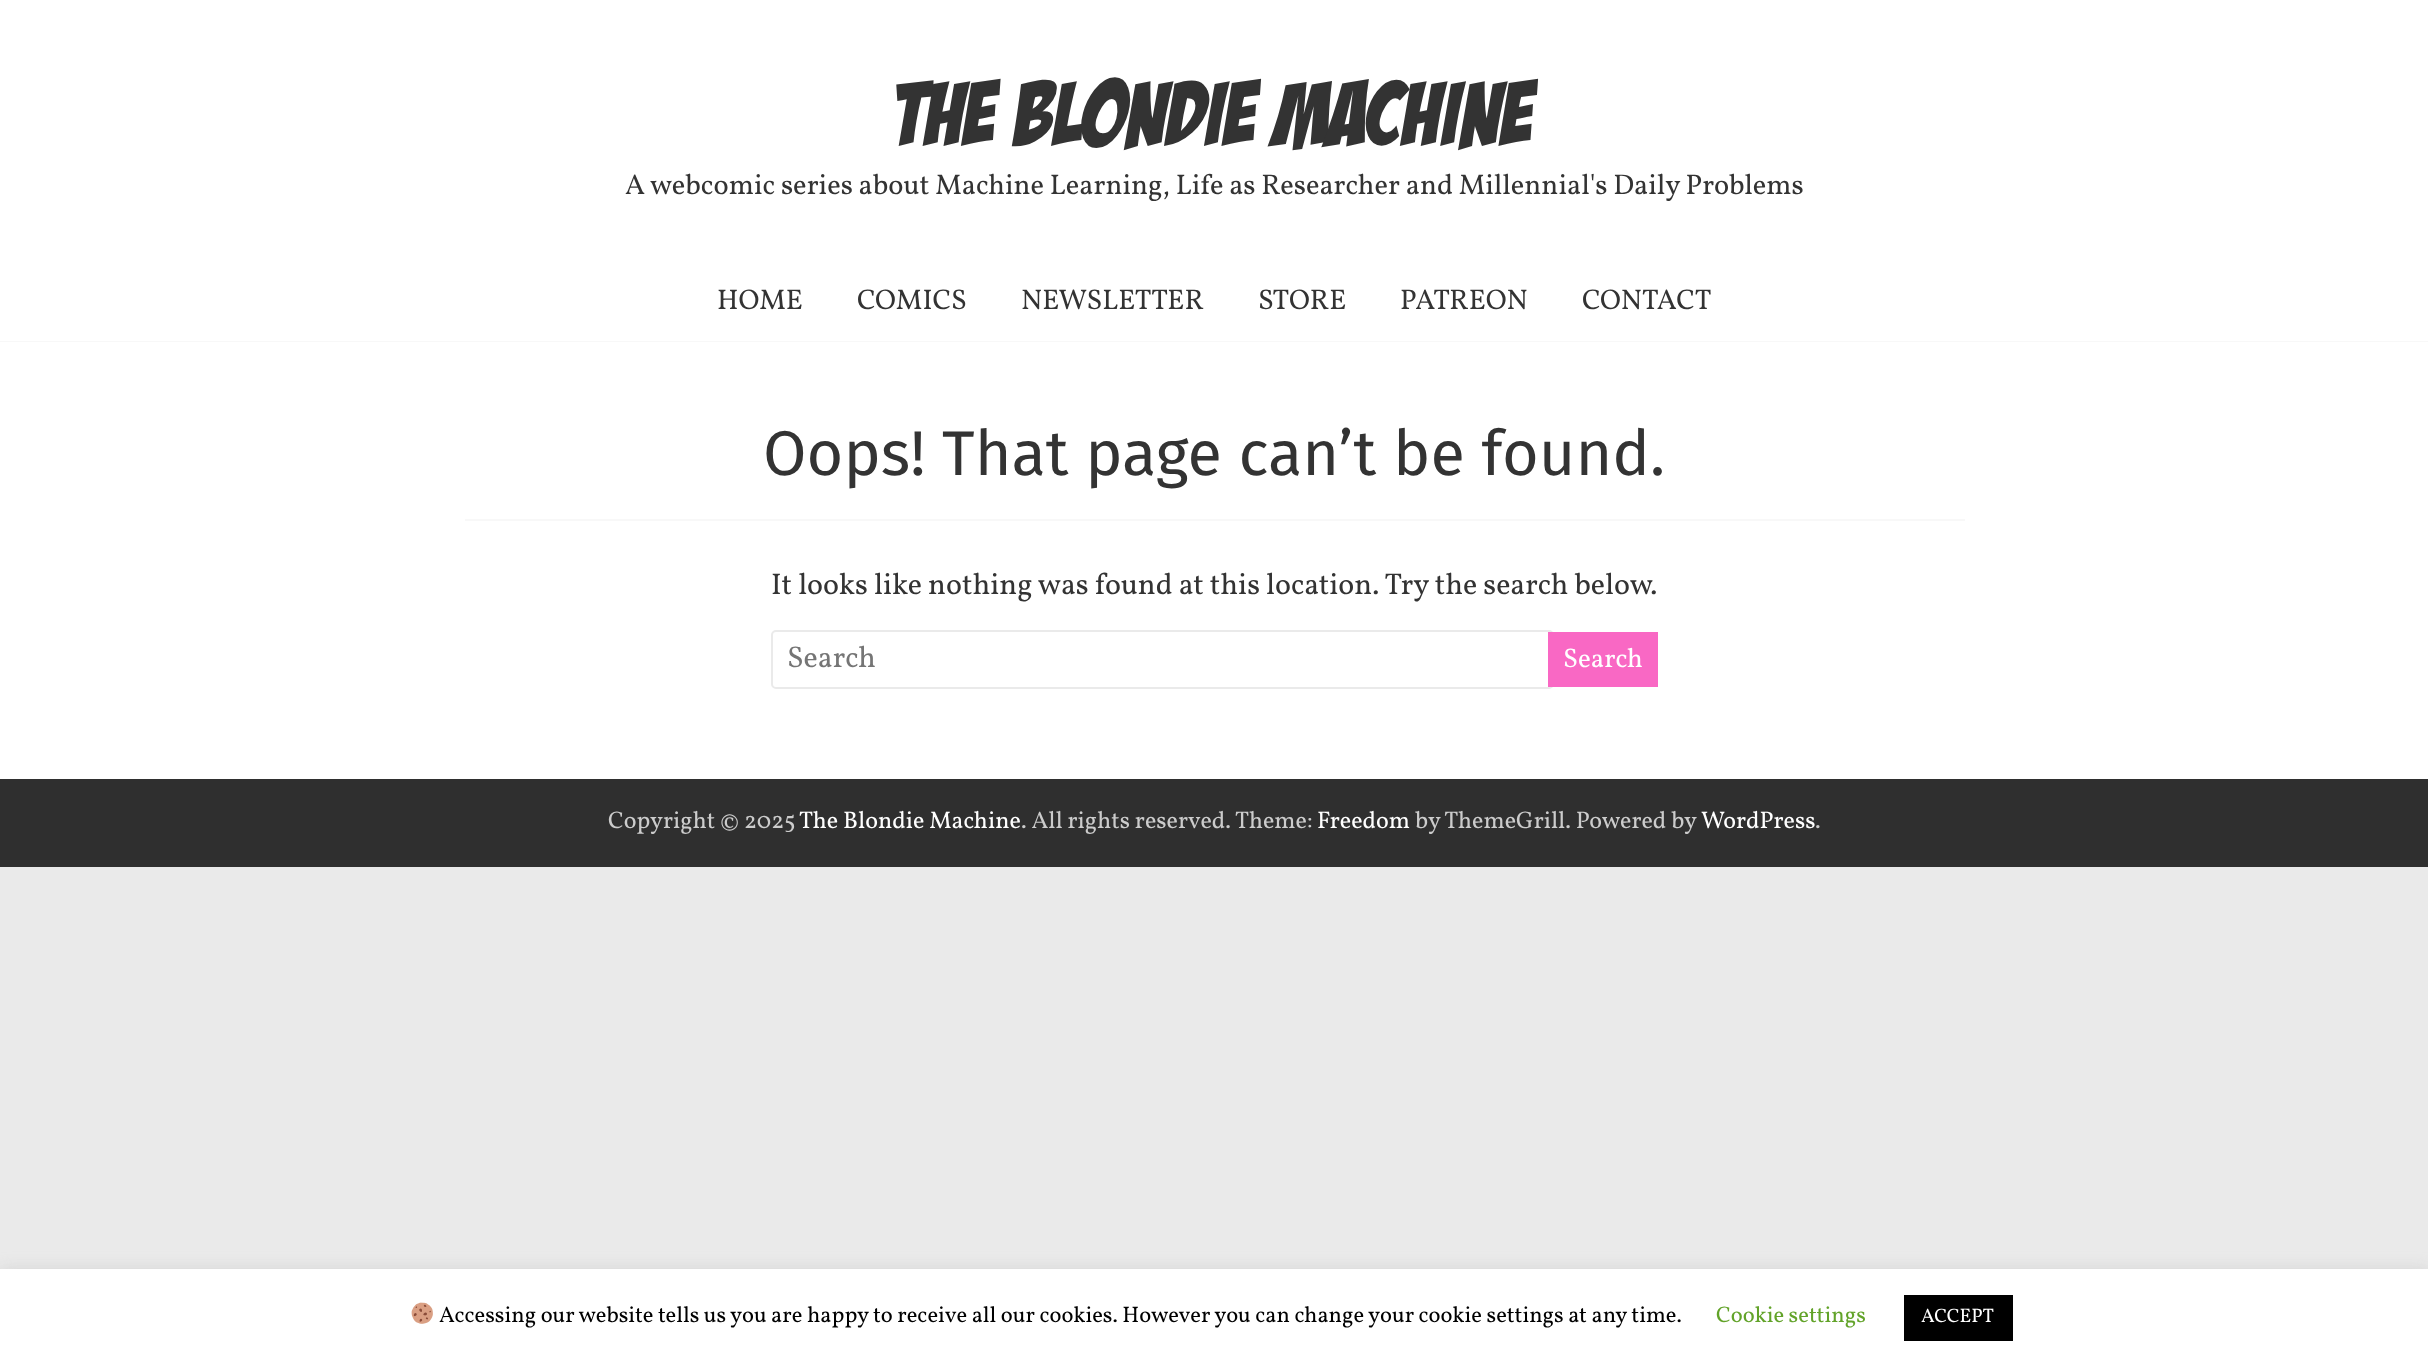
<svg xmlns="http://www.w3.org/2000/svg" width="2428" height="1366">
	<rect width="100%" height="100%" fill="#EAEAEA" />
	<rect x="0" y="0" width="2428" height="341" fill="#FFFFFF" />
	<text x="894" y="146" font-family="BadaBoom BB" font-size="90" fill="#333333">The Blondie Machine</text>
	<text x="625" y="194" font-family="Vollkorn" font-size="28.5" fill="#333333">A webcomic series about Machine Learning, Life as Researcher and Millennial's Daily Problems</text>
	<rect x="0" y="341" width="2428" height="1" fill="#F8F8F8" />
	<g font-family="Vollkorn" font-size="28.5" fill="#333333">
		<text x="717" y="309">HOME</text>
		<text x="857" y="309">COMICS</text>
		<text x="1021" y="309">NEWSLETTER</text>
		<text x="1258" y="309">STORE</text>
		<text x="1400" y="309">PATREON</text>
		<text x="1582" y="309">CONTACT</text>
	</g>
	<rect x="0" y="342" width="2428" height="437" fill="#FFFFFF" />
	<rect x="465" y="519" width="1500" height="2" fill="#F8F8F8" />
	<text x="763" y="475" font-family="Fira Sans" font-size="63" fill="#333333">Oops! That page can’t be found.</text>
	<text x="771" y="594" font-family="Vollkorn" font-size="30" fill="#333333">It looks like nothing was found at this location. Try the search below.</text>
	<rect x="772" y="631" width="781" height="57" rx="4" fill="none" stroke="#EAEAEA" stroke-width="2" />
	<text x="787" y="667" font-family="Vollkorn" font-size="30" fill="#757575">Search</text>
	<rect x="1548" y="632" width="110" height="55" fill="#F968C4" />
	<text x="1563" y="667" font-family="Vollkorn" font-size="27" fill="#FFFFFF">Search</text>
	<rect x="0" y="779" width="2428" height="88" fill="#2F2F2F" />
	<text x="608" y="828" font-family="Vollkorn" font-size="24" fill="#CCCCCC">Copyright © 2025</text>
	<text x="799" y="828" font-family="Vollkorn" font-size="24" fill="#FFFFFF">The Blondie Machine</text>
	<text x="1021" y="828" font-family="Vollkorn" font-size="24" fill="#CCCCCC">. All rights reserved. Theme:</text>
	<text x="1317" y="828" font-family="Vollkorn" font-size="24" fill="#FFFFFF">Freedom</text>
	<text x="1415" y="828" font-family="Vollkorn" font-size="24" fill="#CCCCCC">by ThemeGrill. Powered by</text>
	<text x="1701" y="828" font-family="Vollkorn" font-size="24" fill="#FFFFFF">WordPress</text>
	<text x="1815" y="828" font-family="Vollkorn" font-size="24" fill="#CCCCCC">.</text>
	<rect x="0" y="1268" width="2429" height="97" fill="#ACABAB" fill-opacity="0.3" filter="blur(7.5px)" />
	<rect x="0" y="1269" width="2428" height="97" fill="#FFFFFF" />
	<image x="411" y="1302" width="22" height="22" href="assets/img1.png" />
	<text x="439" y="1322" font-family="Vollkorn" font-size="22.5" fill="#000000">Accessing our website tells us you are happy to receive all our cookies. However you can change your cookie settings at any time.</text>
	<text x="1716" y="1322" font-family="Vollkorn" font-size="22.5" fill="#62A329">Cookie settings</text>
	<rect x="1904" y="1295" width="109" height="46" fill="#000000" />
	<text x="1921" y="1322" font-family="Vollkorn" font-size="19.5" fill="#FFFFFF">ACCEPT</text>
</svg>
